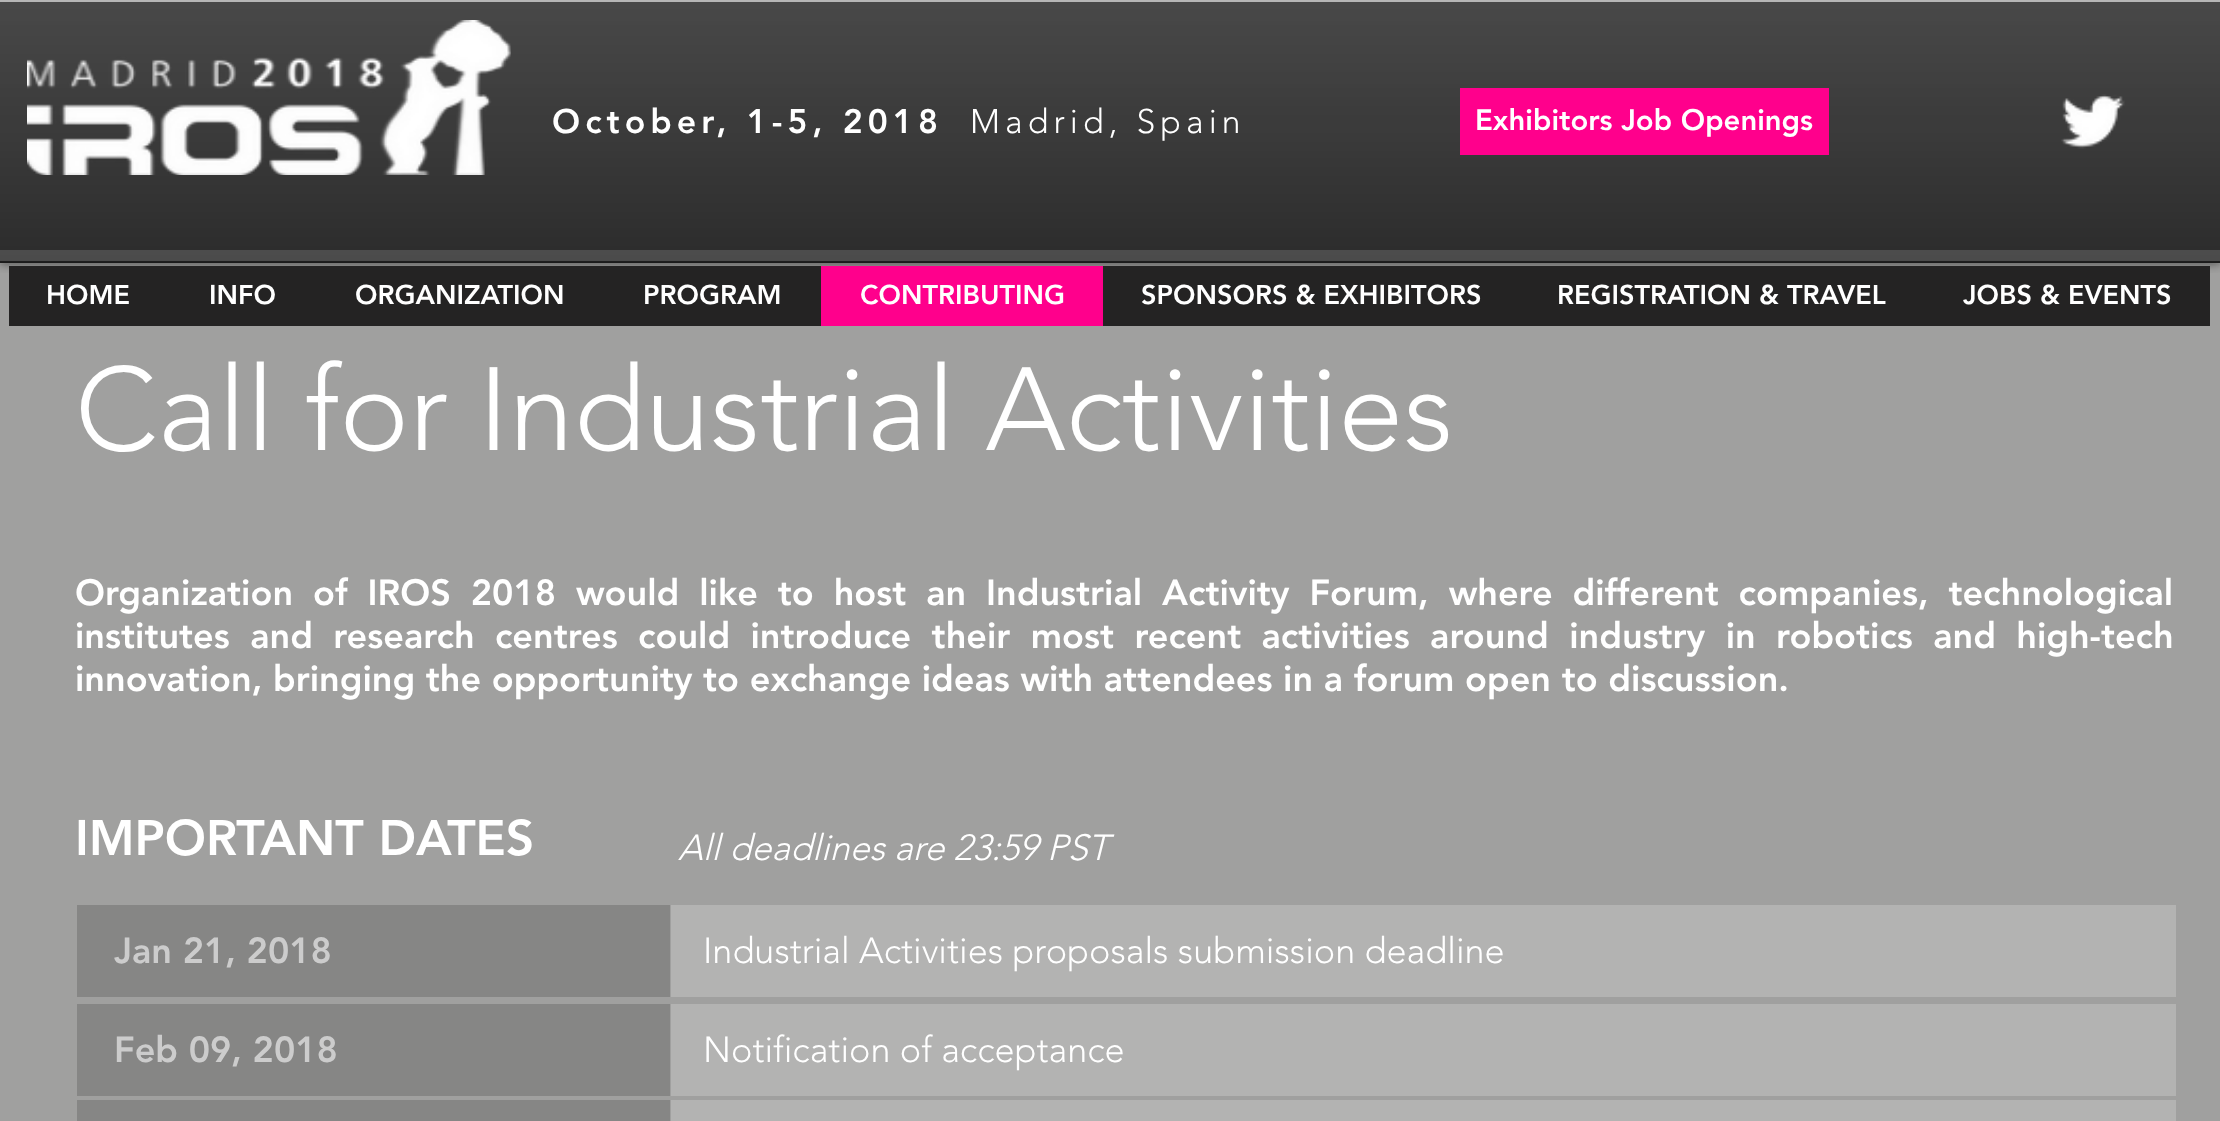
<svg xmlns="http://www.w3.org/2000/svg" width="2220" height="1121">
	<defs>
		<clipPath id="clip1"><rect x="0" y="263" width="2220" height="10" /></clipPath>
	</defs>
	<rect width="100%" height="100%" fill="#0A0A0A" />
	<rect x="0" y="263" width="2220" height="858" fill="#A0A09F" />
	<rect x="0" y="250" width="2220" height="13" fill="#2E2E2E" />
	<g clip-path="url(#clip1)">
		<rect x="0" y="0" width="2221" height="263" fill="#000000" fill-opacity="0.6" filter="blur(5.5px)" />
	</g>
	<image x="0" y="2" width="2220" height="262" href="assets/img1.png" />
	<rect x="0" y="261" width="2220" height="2" fill="#000000" fill-opacity="0.6" />
	<rect x="0" y="0" width="2220" height="2" fill="#B6B6B6" />
	<image x="27" y="20" width="484" height="155" href="assets/img2.png" />
	<text x="552" y="133" font-family="'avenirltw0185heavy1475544'" font-size="33.75" font-weight="900" letter-spacing="5.1" fill="#FFFFFF">October, 1-5, 2018</text>
	<text x="970" y="133" font-family="'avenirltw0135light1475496'" font-size="33.75" font-weight="300" letter-spacing="5.1" fill="#FFFFFF">Madrid, Spain</text>
	<rect x="1460" y="88" width="369" height="67" fill="#FF008C" />
	<text x="1475" y="130" font-family="'avenirltw0185heavy1475544'" font-size="29.25" font-weight="900" fill="#FFFFFF">Exhibitors Job Openings</text>
	<image x="2061" y="94" width="64" height="55" href="assets/img3.png" />
	<rect x="9" y="266" width="2201" height="60" fill="#242323" />
	<g font-family="'avenirltw0185heavy1475544'" font-size="27" font-weight="900" fill="#FFFFFF">
		<text x="46" y="304">HOME</text>
		<text x="209" y="304">INFO</text>
		<text x="355" y="304">ORGANIZATION</text>
		<text x="643" y="304">PROGRAM</text>
	</g>
	<rect x="821" y="266" width="282" height="60" fill="#FF008C" />
	<g font-family="'avenirltw0185heavy1475544'" font-size="27" font-weight="900" fill="#FFFFFF">
		<text x="860" y="304">CONTRIBUTING</text>
		<text x="1141" y="304">SPONSORS &amp; EXHIBITORS</text>
		<text x="1557" y="304">REGISTRATION &amp; TRAVEL</text>
		<text x="1963" y="304">JOBS &amp; EVENTS</text>
	</g>
	<text x="75" y="450" font-family="'avenirltw0135light1475496'" font-size="117" font-weight="300" fill="#FFFFFF">Call for Industrial Activities</text>
	<g font-family="'avenirltw0185heavy1475544'" font-size="36" font-weight="900" fill="#FFFFFF">
		<text x="75" y="605" word-spacing="9.25">Organization of IROS 2018 would like to host an Industrial Activity Forum, where different companies, technological</text>
		<text x="75" y="648" word-spacing="9.75">institutes and research centres could introduce their most recent activities around industry in robotics and high-tech</text>
		<text x="75" y="691">innovation, bringing the opportunity to exchange ideas with attendees in a forum open to discussion.</text>
	</g>
	<text x="75" y="855" font-family="'avenirltw0185heavy1475544'" font-size="49.5" font-weight="900" fill="#FFFFFF">IMPORTANT DATES</text>
	<text x="678" y="860" font-family="'avenirltw0135light1475496'" font-size="36" font-weight="300" font-style="italic" fill="#FFFFFF">All deadlines are 23:59 PST</text>
	<rect x="77" y="905" width="593" height="92" fill="#868685" />
	<rect x="671" y="905" width="1505" height="92" fill="#B3B3B2" />
	<text x="114" y="963" font-family="'avenirltw0185heavy1475544'" font-size="36" font-weight="900" fill="#CCCCCC">Jan 21, 2018</text>
	<text x="703" y="963" font-family="'avenirltw0135light1475496'" font-size="36" font-weight="300" fill="#FFFFFF">Industrial Activities proposals submission deadline</text>
	<rect x="77" y="1004" width="593" height="92" fill="#868685" />
	<rect x="671" y="1004" width="1505" height="92" fill="#B3B3B2" />
	<text x="114" y="1062" font-family="'avenirltw0185heavy1475544'" font-size="36" font-weight="900" fill="#CCCCCC">Feb 09, 2018</text>
	<text x="703" y="1062" font-family="'avenirltw0135light1475496'" font-size="36" font-weight="300" fill="#FFFFFF">Notification of acceptance</text>
	<rect x="77" y="1100" width="593" height="21" fill="#868685" />
	<rect x="671" y="1100" width="1505" height="21" fill="#B3B3B2" />
</svg>
